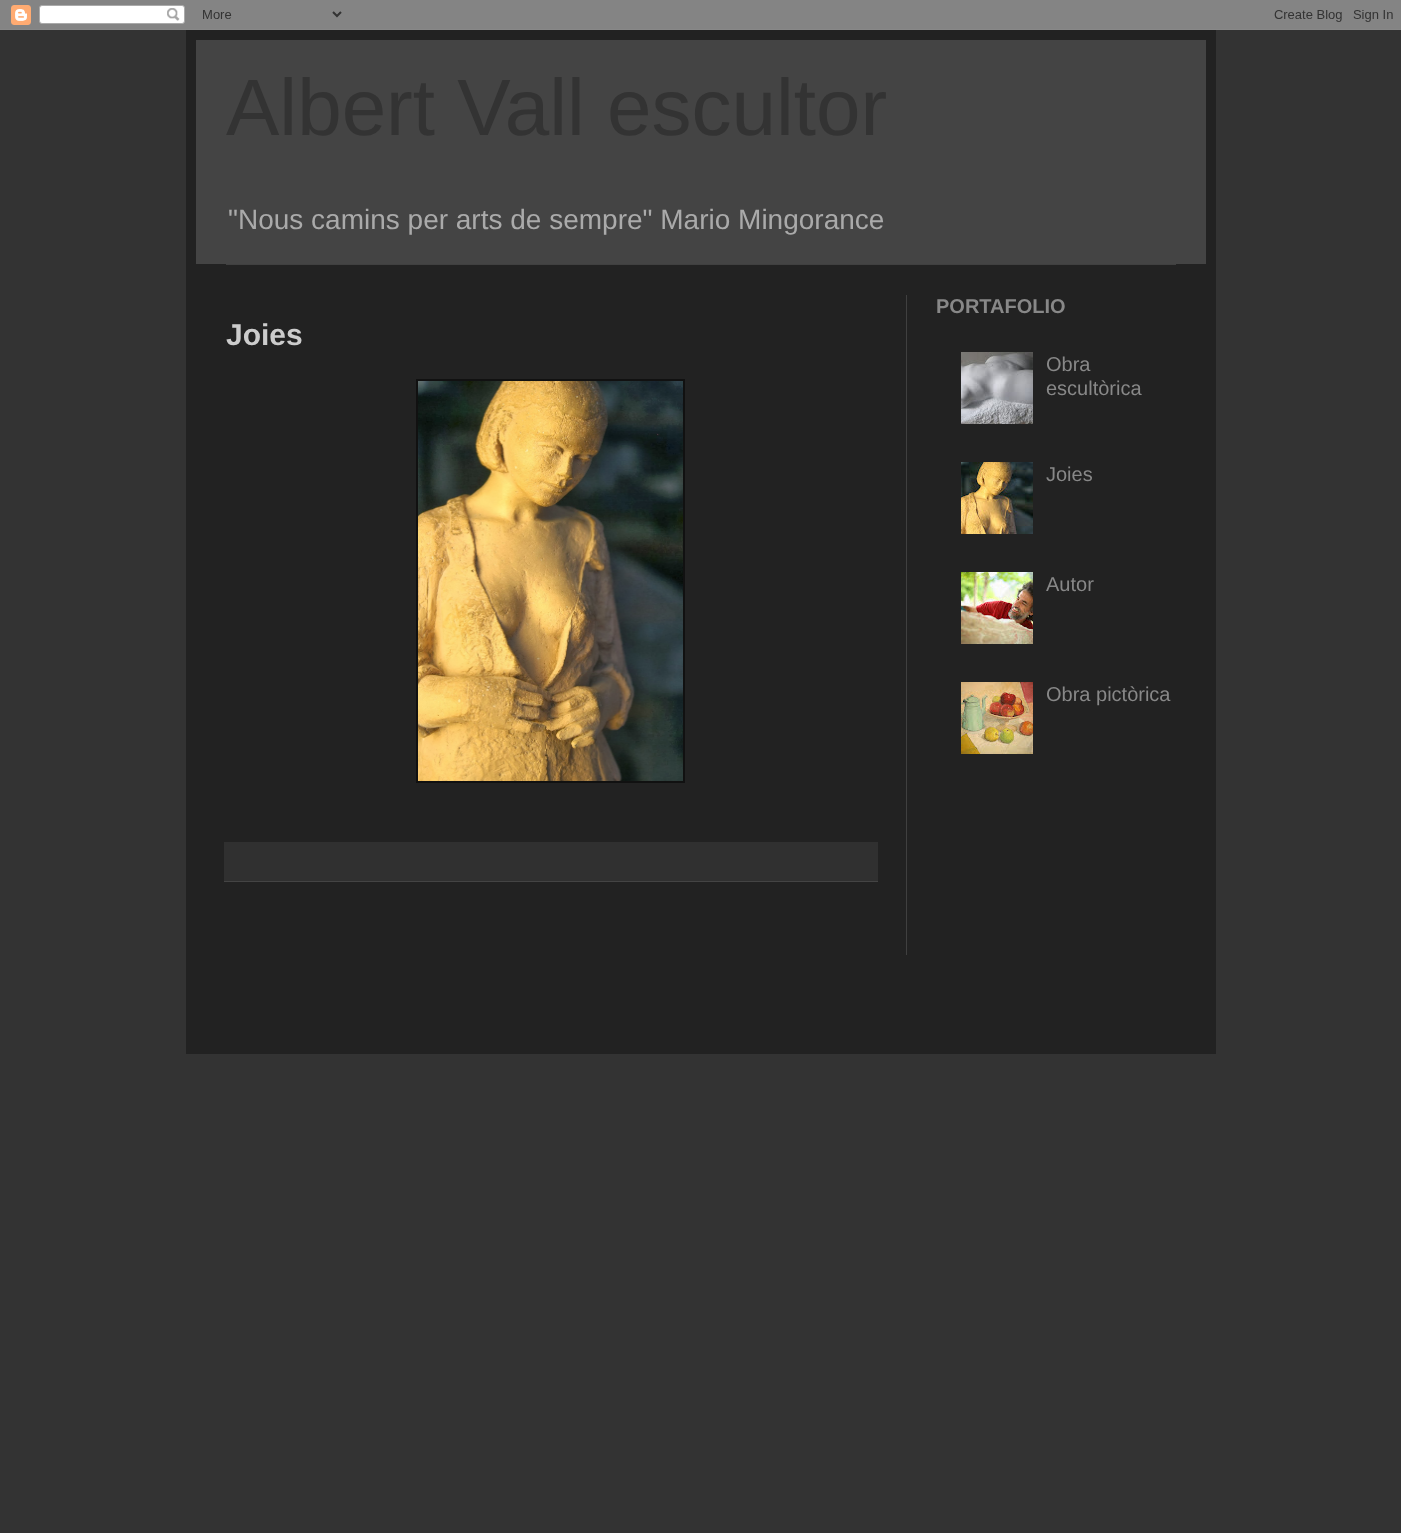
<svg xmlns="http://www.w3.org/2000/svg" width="1401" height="1533">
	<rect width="100%" height="100%" fill="#333333" />
	<image x="0" y="0" width="1401" height="30" href="assets/img1.png" />
	<rect x="186" y="30" width="1030" height="1024" fill="#222222" />
	<rect x="196" y="40" width="1010" height="224" fill="#444444" />
	<text x="226" y="135" font-family="Liberation Sans" font-size="80" fill="#333333">Albert Vall escultor</text>
	<text x="228" y="229" font-family="Liberation Sans" font-size="28" fill="#AAAAAA">"Nous camins per arts de sempre" Mario Mingorance</text>
	<rect x="226" y="264" width="950" height="1" fill="#404040" />
	<rect x="906" y="295" width="1" height="660" fill="#404040" />
	<text x="226" y="345" font-family="Liberation Sans" font-size="30" font-weight="700" fill="#CCCCCC">Joies</text>
	<rect x="416" y="379" width="269" height="404" fill="#111111" />
	<image x="418" y="381" width="265" height="400" href="assets/img2.png" />
	<rect x="224" y="842" width="654" height="39" fill="#303030" />
	<rect x="224" y="881" width="654" height="1" fill="#444444" />
	<text x="936" y="313" font-family="Liberation Sans" font-size="20" font-weight="700" fill="#888888">PORTAFOLIO</text>
	<image x="961" y="352" width="72" height="72" href="assets/img3.png" />
	<g font-family="Liberation Sans" font-size="20" fill="#888888">
		<text x="1046" y="371">Obra</text>
		<text x="1046" y="395">escultòrica</text>
	</g>
	<image x="961" y="462" width="72" height="72" href="assets/img4.png" />
	<text x="1046" y="481" font-family="Liberation Sans" font-size="20" fill="#888888">Joies</text>
	<image x="961" y="572" width="72" height="72" href="assets/img5.png" />
	<text x="1046" y="591" font-family="Liberation Sans" font-size="20" fill="#888888">Autor</text>
	<image x="961" y="682" width="72" height="72" href="assets/img6.png" />
	<text x="1046" y="701" font-family="Liberation Sans" font-size="20" fill="#888888">Obra pictòrica</text>
</svg>
